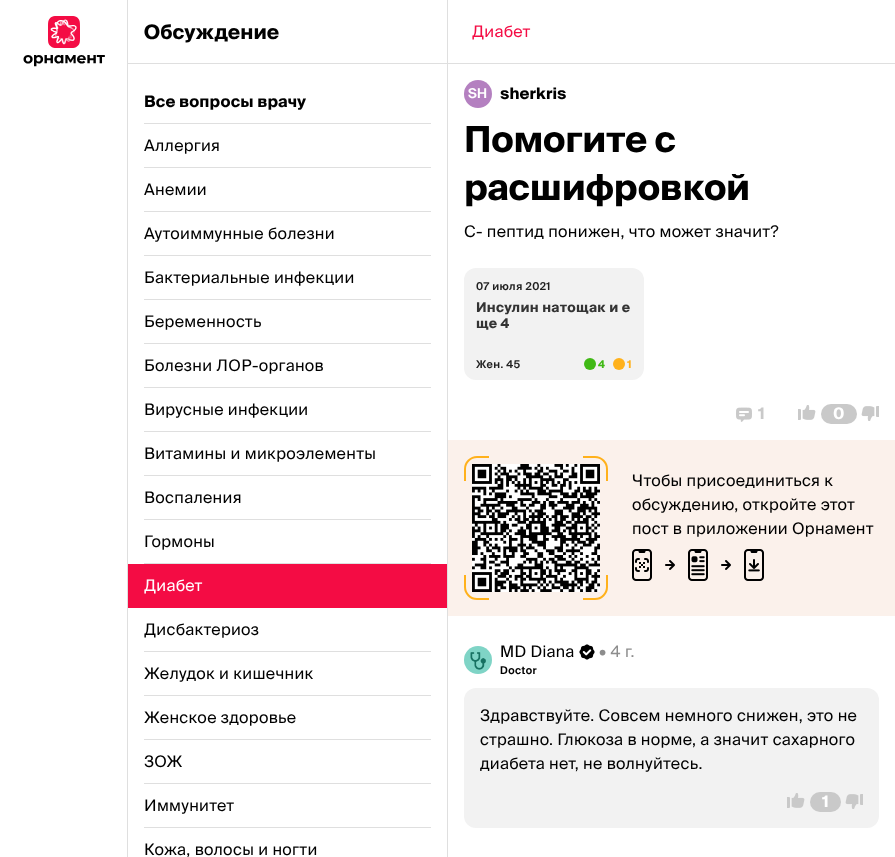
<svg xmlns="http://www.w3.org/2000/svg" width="895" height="857">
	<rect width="100%" height="100%" fill="#FFFFFF" />
	<rect x="127" y="0" width="1" height="857" fill="#DFDFDF" />
	<image x="23" y="16" width="82" height="51" href="assets/img1.png" />
	<rect x="447" y="0" width="1" height="857" fill="#DFDFDF" />
	<rect x="128" y="63" width="319" height="1" fill="#DFDFDF" />
	<text x="144" y="39" font-family="'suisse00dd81'" font-size="20" font-weight="700" fill="#000000">Обсуждение</text>
	<rect x="144" y="123" width="287" height="1" fill="#DFDFDF" />
	<text x="144" y="107" font-family="'suisse00dd81'" font-size="16" font-weight="700" letter-spacing="0.1" fill="#000000">Все вопросы врачу</text>
	<rect x="144" y="167" width="287" height="1" fill="#DFDFDF" />
	<text x="144" y="151" font-family="'suisse00dd81'" font-size="16" letter-spacing="0.3" fill="#000000">Аллергия</text>
	<rect x="144" y="211" width="287" height="1" fill="#DFDFDF" />
	<text x="144" y="195" font-family="'suisse00dd81'" font-size="16" letter-spacing="0.3" fill="#000000">Анемии</text>
	<rect x="144" y="255" width="287" height="1" fill="#DFDFDF" />
	<text x="144" y="239" font-family="'suisse00dd81'" font-size="16" letter-spacing="0.3" fill="#000000">Аутоиммунные болезни</text>
	<rect x="144" y="299" width="287" height="1" fill="#DFDFDF" />
	<text x="144" y="283" font-family="'suisse00dd81'" font-size="16" letter-spacing="0.3" fill="#000000">Бактериальные инфекции</text>
	<rect x="144" y="343" width="287" height="1" fill="#DFDFDF" />
	<text x="144" y="327" font-family="'suisse00dd81'" font-size="16" letter-spacing="0.3" fill="#000000">Беременность</text>
	<rect x="144" y="387" width="287" height="1" fill="#DFDFDF" />
	<text x="144" y="371" font-family="'suisse00dd81'" font-size="16" letter-spacing="0.3" fill="#000000">Болезни ЛОР-органов</text>
	<rect x="144" y="431" width="287" height="1" fill="#DFDFDF" />
	<text x="144" y="415" font-family="'suisse00dd81'" font-size="16" letter-spacing="0.3" fill="#000000">Вирусные инфекции</text>
	<rect x="144" y="475" width="287" height="1" fill="#DFDFDF" />
	<text x="144" y="459" font-family="'suisse00dd81'" font-size="16" letter-spacing="0.3" fill="#000000">Витамины и микроэлементы</text>
	<rect x="144" y="519" width="287" height="1" fill="#DFDFDF" />
	<text x="144" y="503" font-family="'suisse00dd81'" font-size="16" letter-spacing="0.3" fill="#000000">Воспаления</text>
	<rect x="144" y="563" width="287" height="1" fill="#DFDFDF" />
	<text x="144" y="547" font-family="'suisse00dd81'" font-size="16" letter-spacing="0.3" fill="#000000">Гормоны</text>
	<rect x="128" y="564" width="319" height="44" fill="#F40C44" />
	<text x="144" y="591" font-family="'suisse00dd81'" font-size="16" letter-spacing="0.3" fill="#FFFFFF">Диабет</text>
	<rect x="144" y="651" width="287" height="1" fill="#DFDFDF" />
	<text x="144" y="635" font-family="'suisse00dd81'" font-size="16" letter-spacing="0.3" fill="#000000">Дисбактериоз</text>
	<rect x="144" y="695" width="287" height="1" fill="#DFDFDF" />
	<text x="144" y="679" font-family="'suisse00dd81'" font-size="16" letter-spacing="0.3" fill="#000000">Желудок и кишечник</text>
	<rect x="144" y="739" width="287" height="1" fill="#DFDFDF" />
	<text x="144" y="723" font-family="'suisse00dd81'" font-size="16" letter-spacing="0.3" fill="#000000">Женское здоровье</text>
	<rect x="144" y="783" width="287" height="1" fill="#DFDFDF" />
	<text x="144" y="767" font-family="'suisse00dd81'" font-size="16" letter-spacing="0.3" fill="#000000">ЗОЖ</text>
	<rect x="144" y="827" width="287" height="1" fill="#DFDFDF" />
	<g font-family="'suisse00dd81'" font-size="16" letter-spacing="0.3" fill="#000000">
		<text x="144" y="811">Иммунитет</text>
		<text x="144" y="855">Кожа, волосы и ногти</text>
	</g>
	<rect x="448" y="63" width="447" height="1" fill="#DFDFDF" />
	<text x="472" y="37" font-family="'suisse00dd81'" font-size="16" letter-spacing="0.3" fill="#F40C44">Диабет</text>
	<circle cx="478" cy="94" r="14" fill="#B480C0" />
	<text x="468" y="98" font-family="'suisse00dd81'" font-size="13.5" font-weight="600" letter-spacing="0.3" fill="#FFFFFF">SH</text>
	<text x="500" y="99" font-family="'suisse00dd81'" font-size="16" font-weight="700" letter-spacing="0.1" fill="#000000">sherkris</text>
	<g font-family="'suisse00dd81'" font-size="36" font-weight="700" letter-spacing="-0.25" fill="#000000">
		<text x="464" y="152">Помогите с</text>
		<text x="464" y="200">расшифровкой</text>
	</g>
	<text x="464" y="237" font-family="'suisse00dd81'" font-size="16" letter-spacing="0.3" fill="#000000">С- пептид понижен, что может значит?</text>
	<rect x="464" y="268" width="180" height="112" rx="12" fill="#F2F2F2" />
	<text x="476" y="290" font-family="'suisse00dd81'" font-size="10.75" font-weight="600" letter-spacing="0.4" fill="#1F1F1F">07 июля 2021</text>
	<g font-family="'suisse00dd81'" font-size="13.5" font-weight="700" letter-spacing="0.3" fill="#333333">
		<text x="476" y="312">Инсулин натощак и е</text>
		<text x="476" y="328">ще 4</text>
	</g>
	<text x="476" y="368" font-family="'suisse00dd81'" font-size="10.75" font-weight="600" letter-spacing="0.4" fill="#1F1F1F">Жен. 45</text>
	<circle cx="590" cy="364" r="6" fill="#40B915" />
	<text x="598" y="368" font-family="'suisse00dd81'" font-size="10.75" font-weight="700" letter-spacing="0.4" fill="#40B915">4</text>
	<circle cx="619" cy="364" r="6" fill="#FFB11B" />
	<text x="627" y="368" font-family="'suisse00dd81'" font-size="10.75" font-weight="700" letter-spacing="0.4" fill="#FFB11B">1</text>
	<image x="736" y="407" width="16" height="15" href="assets/img2.png" />
	<text x="758" y="419" font-family="'suisse00dd81'" font-size="16" font-weight="700" letter-spacing="0.3" fill="#C9C9C9">1</text>
	<image x="798" y="405" width="18" height="15" href="assets/img3.png" />
	<rect x="821" y="404" width="36" height="20" rx="10" fill="#C9C9C9" />
	<text x="833" y="419" font-family="'suisse00dd81'" font-size="16" font-weight="700" letter-spacing="0.3" fill="#FFFFFF">0</text>
	<image x="861" y="406" width="18" height="15" href="assets/img4.png" />
	<rect x="448" y="440" width="447" height="176" fill="#FBF1EB" />
	<path d="M489 457H477C470.5 457 465 462.5 465 469V481" fill="none" stroke="#FFB11B" stroke-width="2" />
	<path d="M607 481V469C607 462.5 601.5 457 595 457H583" fill="none" stroke="#FFB11B" stroke-width="2" />
	<path d="M583 599H595C601.5 599 607 593.5 607 587V575" fill="none" stroke="#FFB11B" stroke-width="2" />
	<path d="M465 575V587C465 593.5 470.5 599 477 599H489" fill="none" stroke="#FFB11B" stroke-width="2" />
	<image x="472" y="464" width="128" height="128" href="assets/img5.png" />
	<g font-family="'suisse00dd81'" font-size="16" letter-spacing="0.3" fill="#000000">
		<text x="632" y="486">Чтобы присоединиться к</text>
		<text x="632" y="510">обсуждению, откройте этот</text>
		<text x="632" y="534">пост в приложении Орнамент</text>
	</g>
	<image x="632" y="549" width="132" height="32" href="assets/img6.png" />
	<image x="464" y="646" width="28" height="28" href="assets/img7.png" />
	<text x="500" y="657" font-family="'suisse00dd81'" font-size="16" letter-spacing="0.3" fill="#000000">MD Diana</text>
	<image x="579" y="644" width="16" height="16" href="assets/img8.png" />
	<text x="599" y="657" font-family="'suisse00dd81'" font-size="16" letter-spacing="0.3" fill="#8D8D8D">• 4 г.</text>
	<text x="500" y="674" font-family="'suisse00dd81'" font-size="10.75" font-weight="600" letter-spacing="0.4" fill="#000000">Doctor</text>
	<rect x="464" y="688" width="415" height="140" rx="12" fill="#F2F2F2" />
	<g font-family="'suisse00dd81'" font-size="16" letter-spacing="0.3" fill="#000000">
		<text x="480" y="721">Здравствуйте. Совсем немного снижен, это не</text>
		<text x="480" y="745">страшно. Глюкоза в норме, а значит сахарного</text>
		<text x="480" y="769">диабета нет, не волнуйтесь.</text>
	</g>
	<image x="787" y="793" width="18" height="15" href="assets/img9.png" />
	<rect x="810" y="792" width="31" height="20" rx="10" fill="#C9C9C9" />
	<text x="822" y="807" font-family="'suisse00dd81'" font-size="16" font-weight="700" letter-spacing="0.3" fill="#FFFFFF">1</text>
	<image x="845" y="794" width="18" height="15" href="assets/img10.png" />
</svg>
